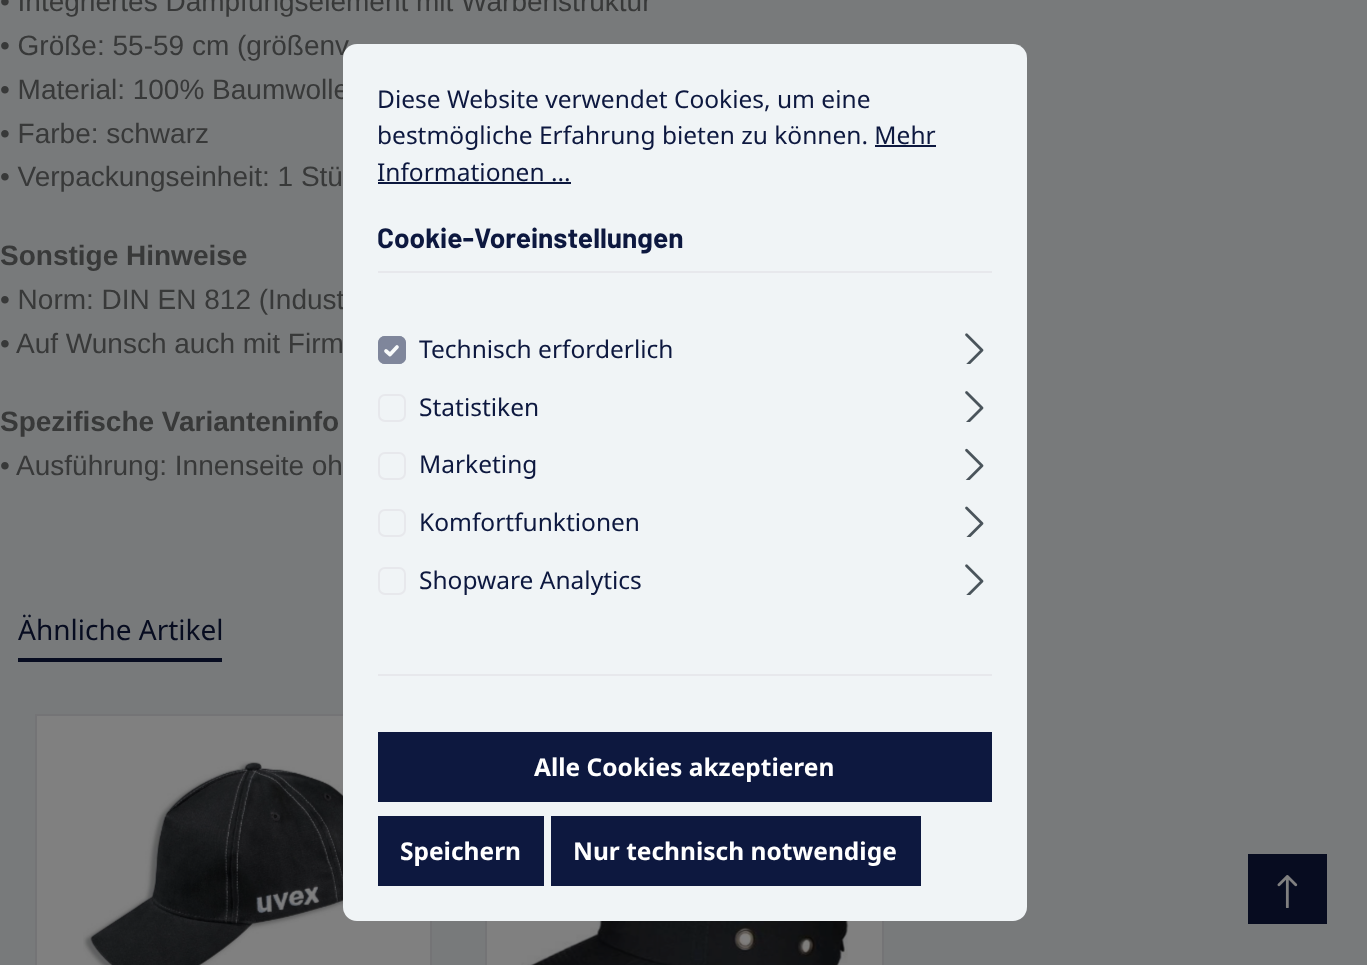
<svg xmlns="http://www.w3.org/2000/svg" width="1367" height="965">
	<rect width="100%" height="100%" fill="#787A7B" />
	<g font-family="Liberation Sans" font-size="28" fill="#383939">
		<text x="0" y="11">• Integriertes Dämpfungselement mit Warbenstruktur</text>
		<text x="0" y="55">• Größe: 55-59 cm (größenv</text>
		<text x="0" y="99">• Material: 100% Baumwolle</text>
		<text x="0" y="143">• Farbe: schwarz</text>
		<text x="0" y="186">• Verpackungseinheit: 1 Stü</text>
	</g>
	<text x="0" y="265" font-family="Liberation Sans" font-size="28" font-weight="700" fill="#383939">Sonstige Hinweise</text>
	<g font-family="Liberation Sans" font-size="28" fill="#383939">
		<text x="0" y="309">• Norm: DIN EN 812 (Indust</text>
		<text x="0" y="353">• Auf Wunsch auch mit Firm</text>
	</g>
	<text x="0" y="431" font-family="Liberation Sans" font-size="28" font-weight="700" fill="#383939">Spezifische Varianteninfo</text>
	<text x="0" y="475" font-family="Liberation Sans" font-size="28" fill="#383939">• Ausführung: Innenseite oh</text>
	<rect x="18" y="658" width="204" height="4" fill="#070C20" />
	<text x="18" y="640" font-family="Noto Sans" font-size="28" fill="#070C20">Ähnliche Artikel</text>
	<rect x="36" y="715" width="395" height="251" fill="#808080" stroke="#747476" stroke-width="2" />
	<image x="83" y="761" width="298" height="204" href="assets/img1.png" />
	<rect x="487" y="921" width="395" height="44" fill="#808080" />
	<rect x="486" y="715" width="397" height="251" fill="none" stroke="#747476" stroke-width="2" />
	<image x="521" y="921" width="328" height="44" href="assets/img2.png" />
	<rect x="343" y="44" width="684" height="877" rx="14" fill="#F0F4F6" />
	<rect x="378" y="271" width="614" height="2" fill="#E7E8EC" />
	<g font-family="Noto Sans" font-size="24.5" fill="#0D183F">
		<text x="377" y="108">Diese Website verwendet Cookies, um eine</text>
		<text x="377" y="144">bestmögliche Erfahrung bieten zu können. Mehr</text>
		<text x="377" y="181">Informationen ...</text>
	</g>
	<rect x="875" y="145" width="61" height="2" fill="#0D183F" />
	<rect x="378" y="182" width="193" height="2" fill="#0D183F" />
	<text x="377" y="248" font-family="Barlow" font-size="28" font-weight="700" fill="#0D183F">Cookie-Voreinstellungen</text>
	<rect x="378" y="674" width="614" height="2" fill="#E7E8EC" />
	<rect x="378" y="336" width="28" height="28" rx="7" fill="#7F869B" />
	<path d="M386 351L390 354.5L397 347" fill="none" stroke="#F8FAFB" stroke-width="3.7" stroke-linecap="round" stroke-linejoin="round" />
	<rect x="379" y="337" width="26" height="26" rx="6" fill="none" stroke="#7F869B" stroke-width="2" />
	<text x="419" y="358" font-family="Noto Sans" font-size="24.5" fill="#0D183F">Technisch erforderlich</text>
	<image x="965" y="333" width="19" height="31" href="assets/img3.png" />
	<rect x="379" y="395" width="26" height="26" rx="6" fill="none" stroke="#E7E8EC" stroke-width="2" />
	<text x="419" y="416" font-family="Noto Sans" font-size="24.5" fill="#0D183F">Statistiken</text>
	<image x="965" y="391" width="19" height="31" href="assets/img4.png" />
	<rect x="379" y="453" width="26" height="26" rx="6" fill="none" stroke="#E7E8EC" stroke-width="2" />
	<text x="419" y="473" font-family="Noto Sans" font-size="24.5" fill="#0D183F">Marketing</text>
	<image x="965" y="448" width="19" height="32" href="assets/img5.png" />
	<rect x="379" y="510" width="26" height="26" rx="6" fill="none" stroke="#E7E8EC" stroke-width="2" />
	<text x="419" y="531" font-family="Noto Sans" font-size="24.5" fill="#0D183F">Komfortfunktionen</text>
	<image x="965" y="506" width="19" height="31" href="assets/img6.png" />
	<rect x="379" y="568" width="26" height="26" rx="6" fill="none" stroke="#E7E8EC" stroke-width="2" />
	<text x="419" y="589" font-family="Noto Sans" font-size="24.5" fill="#0D183F">Shopware Analytics</text>
	<image x="965" y="564" width="19" height="31" href="assets/img3.png" />
	<rect x="378" y="732" width="614" height="70" fill="#0D183F" />
	<text x="534" y="776" font-family="Noto Sans" font-size="24.5" font-weight="700" fill="#FFFFFF">Alle Cookies akzeptieren</text>
	<rect x="378" y="816" width="166" height="70" fill="#0D183F" />
	<text x="400" y="860" font-family="Noto Sans" font-size="24.5" font-weight="700" fill="#FFFFFF">Speichern</text>
	<rect x="551" y="816" width="370" height="70" fill="#0D183F" />
	<text x="573" y="860" font-family="Noto Sans" font-size="24.5" font-weight="700" fill="#FFFFFF">Nur technisch notwendige</text>
	<rect x="1248" y="854" width="79" height="70" fill="#070C20" />
	<image x="1277" y="875" width="21" height="33" href="assets/img7.png" />
</svg>
